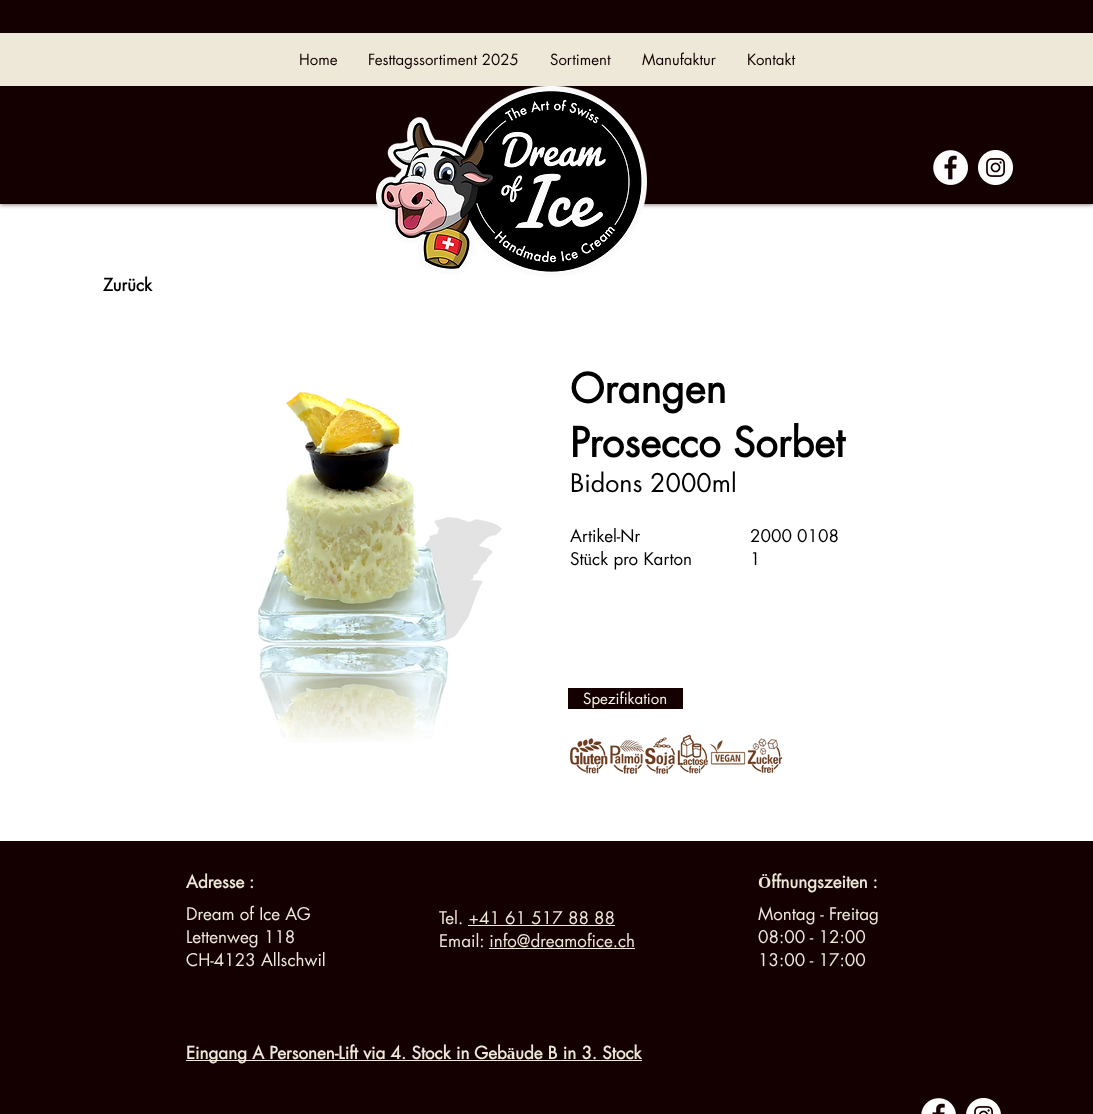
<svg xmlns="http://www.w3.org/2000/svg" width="1093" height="1114">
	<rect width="100%" height="100%" fill="#FFFFFF" />
	<rect x="0" y="0" width="1093" height="204" fill="#140000" fill-opacity="0.7" filter="blur(2.5px)" />
	<rect x="0" y="0" width="1093" height="204" fill="#140000" />
	<rect x="0" y="33" width="1093" height="53" fill="#EEE8D8" />
	<g font-family="futura" font-size="15" fill="#140000">
		<text x="299" y="65">Home</text>
		<text x="368" y="65">Festtagssortiment 2025</text>
		<text x="550" y="65">Sortiment</text>
		<text x="642" y="65">Manufaktur</text>
		<text x="747" y="65">Kontakt</text>
	</g>
	<image x="376" y="86" width="271" height="191" href="assets/img1.png" />
	<image x="933" y="150" width="35" height="35" href="assets/img2.png" />
	<image x="978" y="150" width="35" height="35" href="assets/img3.png" />
	<text x="103" y="291" font-family="futura" font-size="17" font-weight="700" fill="#000000">Zurück</text>
	<image x="258" y="392" width="244" height="351" href="assets/img4.png" />
	<g font-family="futura" font-size="40" font-weight="700" fill="#000000">
		<text x="570" y="403">Orangen</text>
		<text x="570" y="457">Prosecco Sorbet</text>
	</g>
	<text x="570" y="492" font-family="futura" font-size="25" fill="#000000">Bidons 2000ml</text>
	<g font-family="futura" font-size="17" fill="#000000">
		<text x="570" y="542">Artikel-Nr</text>
		<text x="570" y="565">Stück pro Karton</text>
		<text x="750" y="542">2000 0108</text>
		<text x="750" y="565">1</text>
	</g>
	<rect x="568" y="688" width="115" height="21" fill="#140000" />
	<text x="583" y="704" font-family="futura" font-size="15" fill="#F7F5E1">Spezifikation</text>
	<image x="570" y="734" width="213" height="40" href="assets/img5.png" />
	<rect x="0" y="841" width="1093" height="273" fill="#140000" />
	<g font-family="futura" font-size="17" font-weight="700" fill="#EEE8D8">
		<text x="186" y="888">Adresse :</text>
		<text x="758" y="888">Öffnungszeiten :</text>
	</g>
	<g font-family="futura" font-size="17" fill="#EEE8D8">
		<text x="186" y="920">Dream of Ice AG</text>
		<text x="186" y="943">Lettenweg 118</text>
		<text x="186" y="966">CH-4123 Allschwil</text>
		<text x="439" y="924">Tel. +41 61 517 88 88</text>
	</g>
	<rect x="468" y="925" width="147" height="1" fill="#EEE8D8" />
	<text x="439" y="947" font-family="futura" font-size="17" fill="#EEE8D8">Email: info@dreamofice.ch</text>
	<rect x="489" y="948" width="146" height="1" fill="#EEE8D8" />
	<g font-family="futura" font-size="17" fill="#EEE8D8">
		<text x="758" y="920">Montag - Freitag</text>
		<text x="758" y="943">08:00 - 12:00</text>
		<text x="758" y="966">13:00 - 17:00</text>
	</g>
	<rect x="186" y="1060" width="456" height="1" fill="#EEE8D8" />
	<text x="186" y="1059" font-family="futura" font-size="17" font-weight="700" fill="#EEE8D8">Eingang A Personen-Lift via 4. Stock in Gebäude B in 3. Stock</text>
	<image x="921" y="1098" width="35" height="16" href="assets/img6.png" />
	<image x="966" y="1098" width="35" height="16" href="assets/img7.png" />
</svg>
